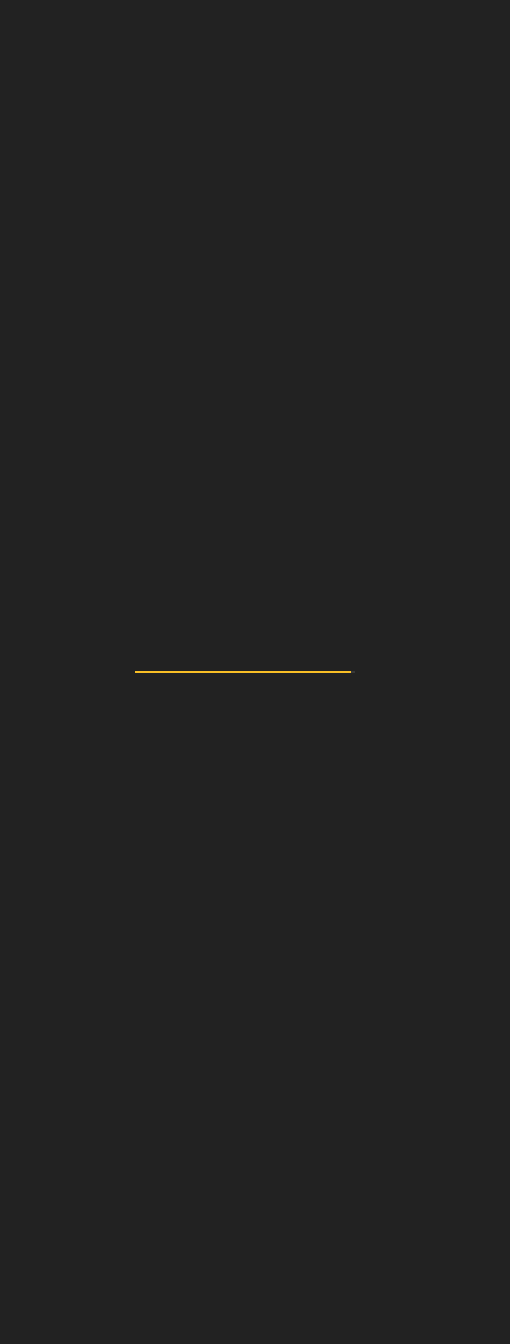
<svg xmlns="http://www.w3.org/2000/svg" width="510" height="1344">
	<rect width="100%" height="100%" fill="#222222" />
	<rect x="135" y="671" width="216" height="2" fill="#F9BF26" />
	<rect x="351" y="671" width="4" height="2" fill="#383838" />
</svg>
